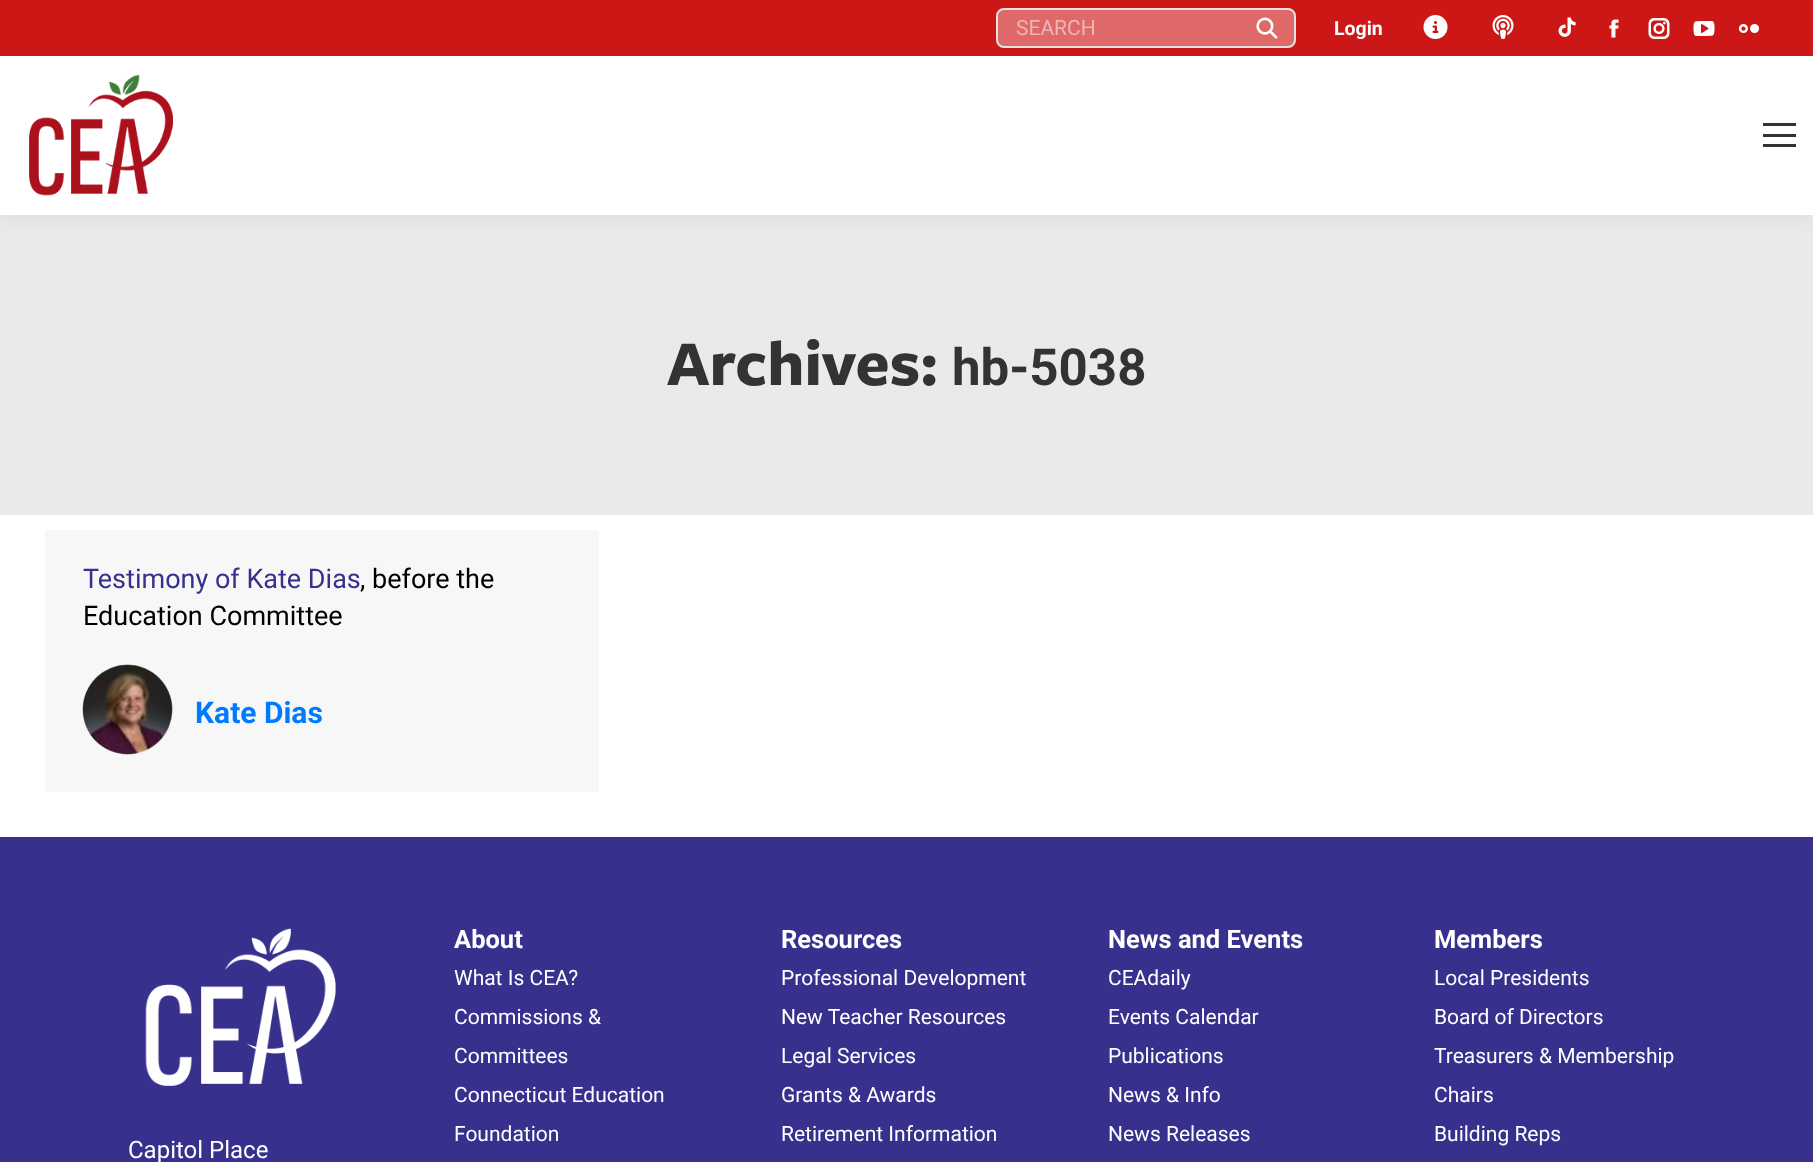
<svg xmlns="http://www.w3.org/2000/svg" width="1813" height="1162">
	<rect width="100%" height="100%" fill="#FFFFFF" />
	<rect x="0" y="215" width="1813" height="300" fill="#EAEAEA" />
	<rect x="-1" y="-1" width="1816" height="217" fill="#000000" fill-opacity="0.07" filter="blur(11px)" />
	<rect x="0" y="56" width="1813" height="159" fill="#FFFFFF" />
	<rect x="0" y="0" width="1813" height="56" fill="#CD1717" />
	<rect x="997" y="9" width="298" height="38" rx="7" fill="#DF6868" stroke="#E2E2E2" stroke-width="2" />
	<text x="1016" y="35" font-family="Roboto" font-size="21" fill="#EFB4B4">SEARCH</text>
	<image x="1256" y="17" width="22" height="22" href="assets/img1.png" />
	<text x="1334" y="35" font-family="Roboto" font-size="19.5" font-weight="700" fill="#FFFFFF">Login</text>
	<image x="1423" y="15" width="25" height="24" href="assets/img2.png" />
	<image x="1492" y="15" width="22" height="24" href="assets/img3.png" />
	<image x="1558" y="17" width="18" height="20" href="assets/img4.png" />
	<image x="1609" y="19" width="10" height="19" href="assets/img5.png" />
	<image x="1648" y="18" width="22" height="21" href="assets/img6.png" />
	<image x="1693" y="21" width="22" height="15" href="assets/img7.png" />
	<image x="1738" y="24" width="22" height="9" href="assets/img8.png" />
	<image x="29" y="74" width="144" height="122" href="assets/img9.png" />
	<rect x="1763" y="123" width="33" height="3" fill="#333333" />
	<rect x="1763" y="134" width="33" height="3" fill="#333333" />
	<rect x="1763" y="144" width="33" height="3" fill="#333333" />
	<text x="667" y="385" font-family="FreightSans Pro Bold" font-size="66" font-weight="700" fill="#333333">Archives:</text>
	<text x="952" y="385" font-family="Roboto" font-size="51" font-weight="700" fill="#333333">hb-5038</text>
	<rect x="45" y="530" width="554" height="262" fill="#F7F7F7" />
	<text x="83" y="588" font-family="Roboto" font-size="27" fill="#37308D">Testimony of Kate Dias</text>
	<g font-family="Roboto" font-size="27" fill="#000000">
		<text x="360" y="588">, before the</text>
		<text x="83" y="625">Education Committee</text>
	</g>
	<circle cx="128" cy="710" r="45" fill="#EBEBEB" />
	<image x="82" y="664" width="91" height="91" href="assets/img10.png" />
	<text x="195" y="723" font-family="Roboto" font-size="30" font-weight="700" fill="#007BFF">Kate Dias</text>
	<rect x="0" y="837" width="1813" height="325" fill="#37308D" />
	<text x="454" y="948" font-family="Roboto" font-size="25.5" font-weight="700" fill="#FFFFFF">About</text>
	<g font-family="Roboto" font-size="21" fill="#FFFFFF">
		<text x="454" y="985">What Is CEA?</text>
		<text x="454" y="1024">Commissions &amp;</text>
		<text x="454" y="1063">Committees</text>
		<text x="454" y="1102">Connecticut Education</text>
		<text x="454" y="1141">Foundation</text>
	</g>
	<text x="781" y="948" font-family="Roboto" font-size="25.5" font-weight="700" fill="#FFFFFF">Resources</text>
	<g font-family="Roboto" font-size="21" fill="#FFFFFF">
		<text x="781" y="985">Professional Development</text>
		<text x="781" y="1024">New Teacher Resources</text>
		<text x="781" y="1063">Legal Services</text>
		<text x="781" y="1102">Grants &amp; Awards</text>
		<text x="781" y="1141">Retirement Information</text>
	</g>
	<text x="1108" y="948" font-family="Roboto" font-size="25.5" font-weight="700" fill="#FFFFFF">News and Events</text>
	<g font-family="Roboto" font-size="21" fill="#FFFFFF">
		<text x="1108" y="985">CEAdaily</text>
		<text x="1108" y="1024">Events Calendar</text>
		<text x="1108" y="1063">Publications</text>
		<text x="1108" y="1102">News &amp; Info</text>
		<text x="1108" y="1141">News Releases</text>
	</g>
	<text x="1434" y="948" font-family="Roboto" font-size="25.5" font-weight="700" fill="#FFFFFF">Members</text>
	<g font-family="Roboto" font-size="21" fill="#FFFFFF">
		<text x="1434" y="985">Local Presidents</text>
		<text x="1434" y="1024">Board of Directors</text>
		<text x="1434" y="1063">Treasurers &amp; Membership</text>
		<text x="1434" y="1102">Chairs</text>
		<text x="1434" y="1141">Building Reps</text>
	</g>
	<image x="145" y="928" width="191" height="158" href="assets/img11.png" />
	<text x="128" y="1158" font-family="Roboto" font-size="24" fill="#FFFFFF">Capitol Place</text>
</svg>
